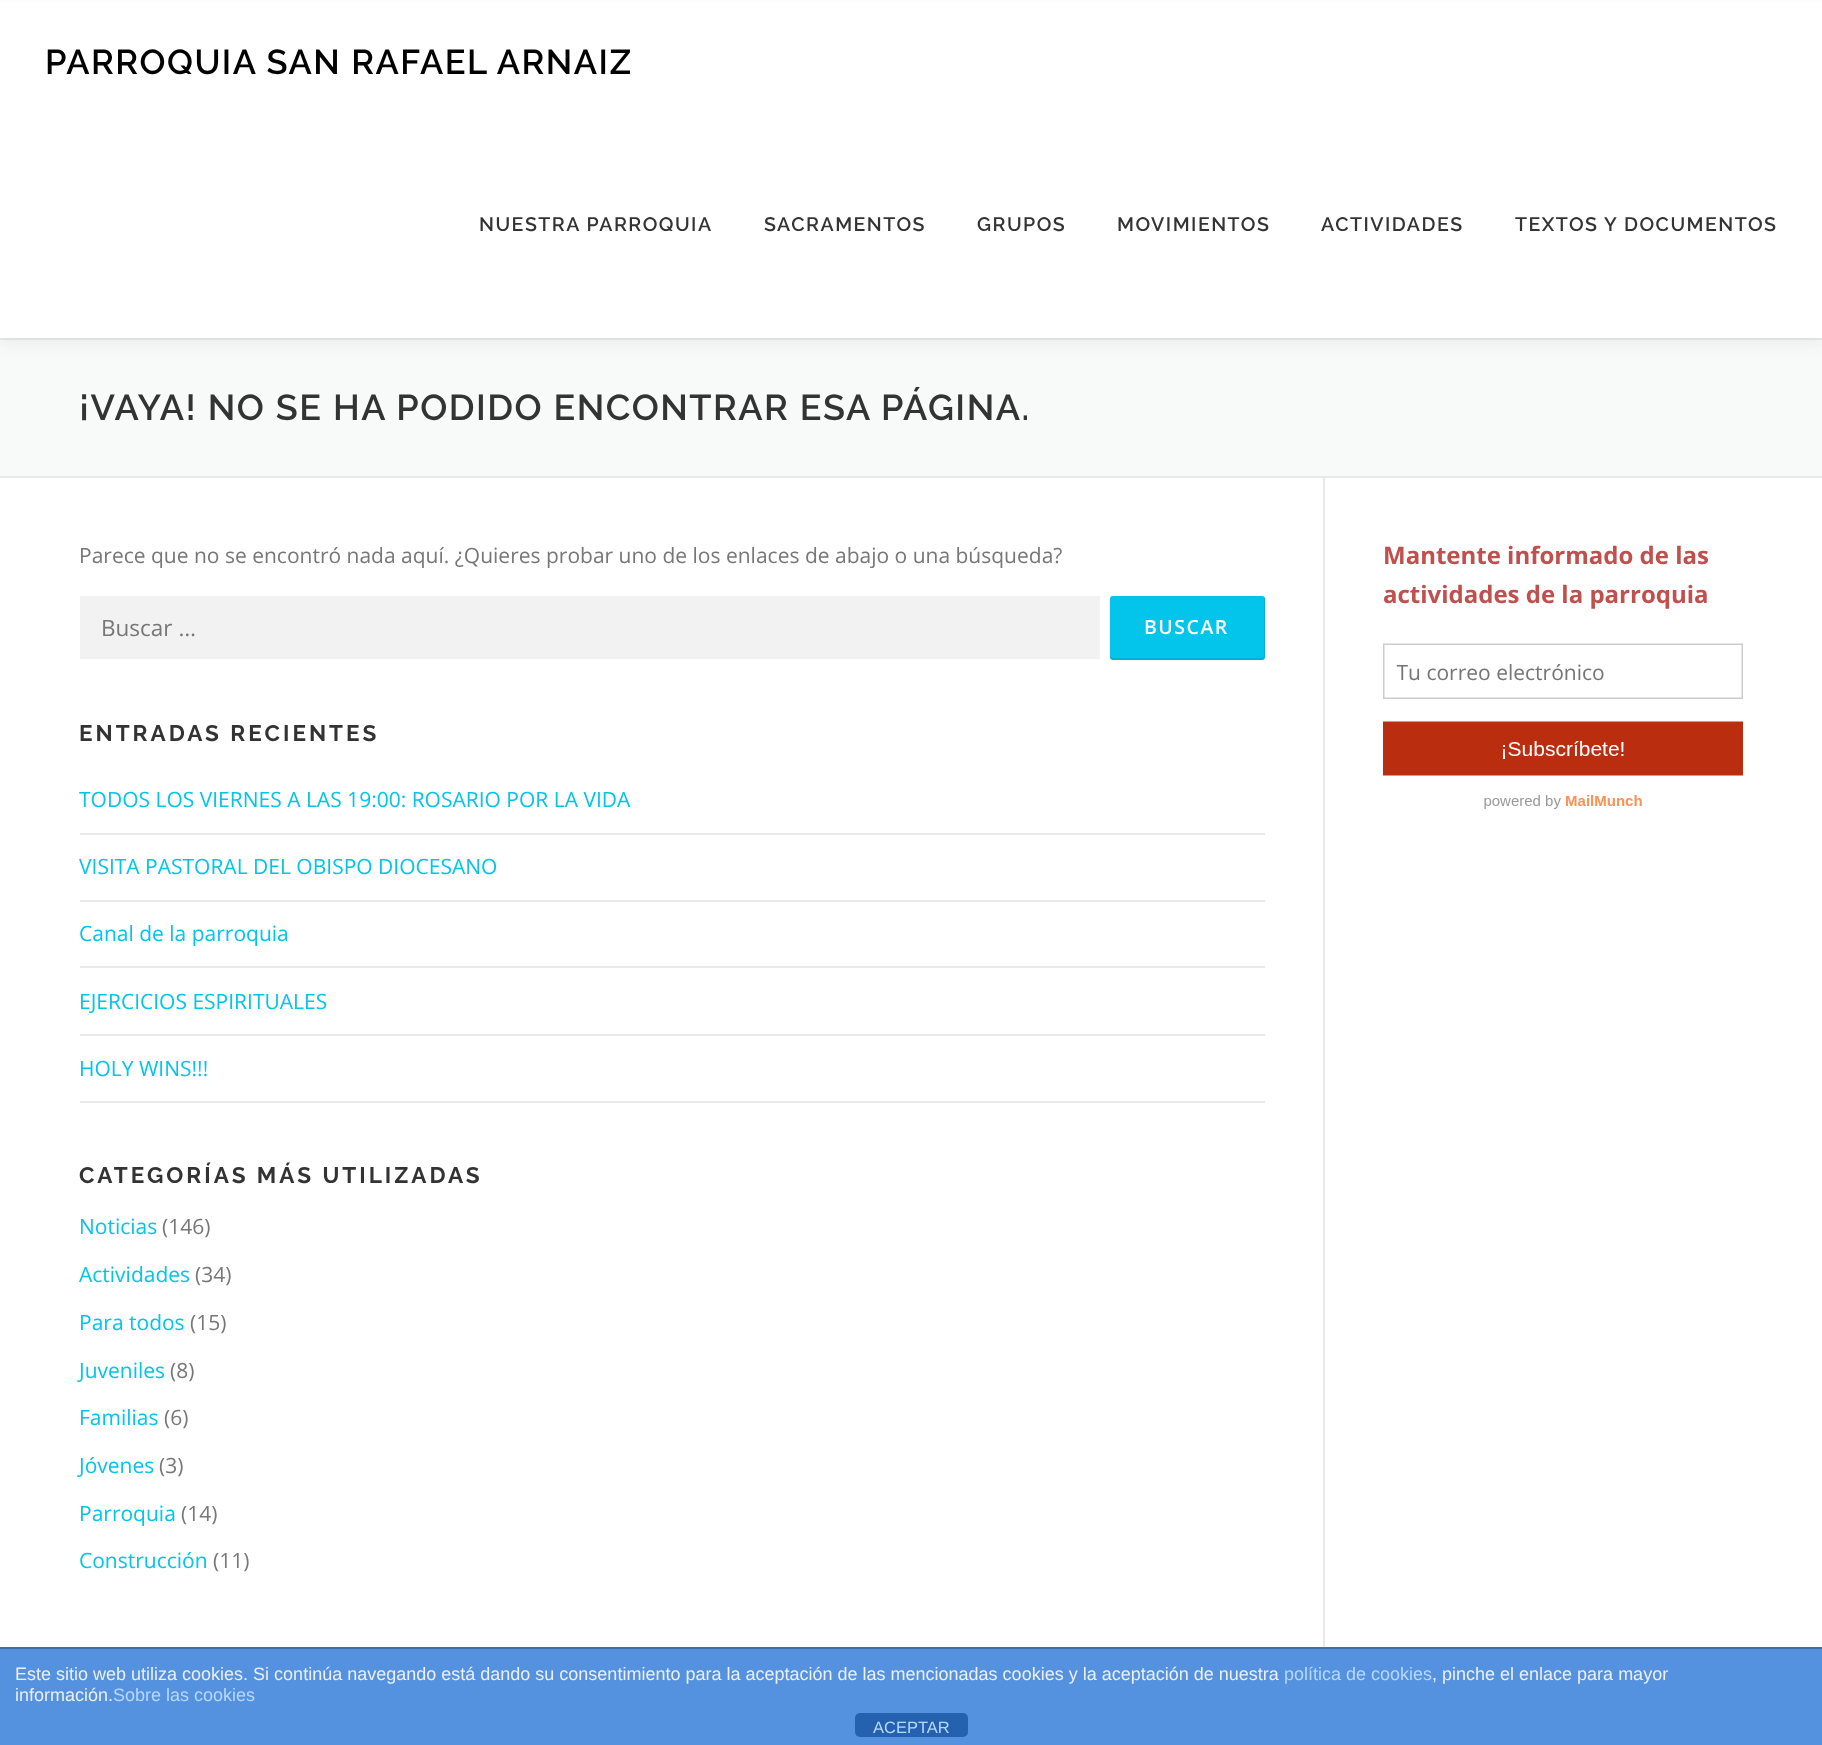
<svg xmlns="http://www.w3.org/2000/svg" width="1822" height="1745">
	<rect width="100%" height="100%" fill="#FFFFFF" />
	<rect x="0" y="340" width="1822" height="136" fill="#F8F9F9" />
	<rect x="0" y="338" width="1822" height="2" fill="#E9E9E9" />
	<rect x="0" y="8" width="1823" height="337" fill="#323232" fill-opacity="0.06" filter="blur(7.5px)" />
	<rect x="0" y="2" width="1822" height="336" fill="#FFFFFF" />
	<text x="45" y="74" font-family="Raleway" font-size="34.5" font-weight="600" letter-spacing="1.5" fill="#000000">PARROQUIA SAN RAFAEL ARNAIZ</text>
	<g font-family="Raleway" font-size="19.5" font-weight="600" letter-spacing="1.5" fill="#333333">
		<text x="479" y="231">NUESTRA PARROQUIA</text>
		<text x="764" y="231">SACRAMENTOS</text>
		<text x="977" y="231">GRUPOS</text>
		<text x="1117" y="231">MOVIMIENTOS</text>
		<text x="1321" y="231">ACTIVIDADES</text>
		<text x="1515" y="231">TEXTOS Y DOCUMENTOS</text>
	</g>
	<rect x="0" y="476" width="1822" height="2" fill="#E9E9E9" />
	<text x="79" y="420" font-family="Raleway" font-size="36" font-weight="600" letter-spacing="1.5" fill="#333333">¡VAYA! NO SE HA PODIDO ENCONTRAR ESA PÁGINA.</text>
	<rect x="1323" y="477" width="2" height="1170" fill="#E9E9E9" />
	<text x="79" y="563" font-family="Open Sans" font-size="21" fill="#777777">Parece que no se encontró nada aquí. ¿Quieres probar uno de los enlaces de abajo o una búsqueda?</text>
	<rect x="80" y="596" width="1020" height="63" fill="#F2F2F2" />
	<text x="101" y="636" font-family="Open Sans" font-size="22.5" fill="#777777">Buscar …</text>
	<rect x="1110" y="596" width="155" height="64" rx="3" fill="#03C4EB" />
	<path d="M1110 656V657C1110 659 1111 660 1113 660H1262C1264 660 1265 659 1265 657V599C1265 598 1265 597 1264 597V656C1264 657 1263 658 1262 658H1113C1111 658 1110 657 1110 656Z" fill="#000000" fill-opacity="0.1" />
	<text x="1144" y="634" font-family="Open Sans" font-size="19.5" font-weight="600" letter-spacing="1.5" fill="#FFFFFF">BUSCAR</text>
	<text x="79" y="741" font-family="Raleway" font-size="22.5" font-weight="700" letter-spacing="3" fill="#333333">ENTRADAS RECIENTES</text>
	<rect x="80" y="833" width="1185" height="2" fill="#E9E9E9" />
	<text x="79" y="807" font-family="Open Sans" font-size="21" fill="#03C4EB">TODOS LOS VIERNES A LAS 19:00: ROSARIO POR LA VIDA</text>
	<rect x="80" y="900" width="1185" height="2" fill="#E9E9E9" />
	<text x="79" y="874" font-family="Open Sans" font-size="21" fill="#03C4EB">VISITA PASTORAL DEL OBISPO DIOCESANO</text>
	<rect x="80" y="966" width="1185" height="2" fill="#E9E9E9" />
	<text x="79" y="941" font-family="Open Sans" font-size="21" fill="#03C4EB">Canal de la parroquia</text>
	<rect x="80" y="1034" width="1185" height="2" fill="#E9E9E9" />
	<text x="79" y="1009" font-family="Open Sans" font-size="21" fill="#03C4EB">EJERCICIOS ESPIRITUALES</text>
	<rect x="80" y="1101" width="1185" height="2" fill="#E9E9E9" />
	<text x="79" y="1076" font-family="Open Sans" font-size="21" fill="#03C4EB">HOLY WINS!!!</text>
	<text x="79" y="1183" font-family="Raleway" font-size="22.5" font-weight="700" letter-spacing="3" fill="#333333">CATEGORÍAS MÁS UTILIZADAS</text>
	<text x="79" y="1234" font-family="Open Sans" font-size="21" fill="#03C4EB">Noticias</text>
	<text x="162" y="1234" font-family="Open Sans" font-size="21" fill="#777777">(146)</text>
	<text x="79" y="1282" font-family="Open Sans" font-size="21" fill="#03C4EB">Actividades</text>
	<text x="195" y="1282" font-family="Open Sans" font-size="21" fill="#777777">(34)</text>
	<text x="79" y="1330" font-family="Open Sans" font-size="21" fill="#03C4EB">Para todos</text>
	<text x="190" y="1330" font-family="Open Sans" font-size="21" fill="#777777">(15)</text>
	<text x="79" y="1378" font-family="Open Sans" font-size="21" fill="#03C4EB">Juveniles</text>
	<text x="170" y="1378" font-family="Open Sans" font-size="21" fill="#777777">(8)</text>
	<text x="79" y="1425" font-family="Open Sans" font-size="21" fill="#03C4EB">Familias</text>
	<text x="164" y="1425" font-family="Open Sans" font-size="21" fill="#777777">(6)</text>
	<text x="79" y="1473" font-family="Open Sans" font-size="21" fill="#03C4EB">Jóvenes</text>
	<text x="159" y="1473" font-family="Open Sans" font-size="21" fill="#777777">(3)</text>
	<text x="79" y="1521" font-family="Open Sans" font-size="21" fill="#03C4EB">Parroquia</text>
	<text x="181" y="1521" font-family="Open Sans" font-size="21" fill="#777777">(14)</text>
	<text x="79" y="1568" font-family="Open Sans" font-size="21" fill="#03C4EB">Construcción</text>
	<text x="213" y="1568" font-family="Open Sans" font-size="21" fill="#777777">(11)</text>
	<image x="1383" y="545" width="360" height="264" href="assets/img1.png" />
	<rect x="0" y="1649" width="1822" height="96" fill="#5492E0" />
	<rect x="0" y="1647" width="1822" height="2" fill="#3F6DA7" />
	<text x="15" y="1680" font-family="Liberation Sans" font-size="18" fill="#EEEEEE">Este sitio web utiliza cookies. Si continúa navegando está dando su consentimiento para la aceptación de las mencionadas cookies y la aceptación de nuestra</text>
	<text x="1284" y="1680" font-family="Liberation Sans" font-size="18" fill="#B7D7FF">política de cookies</text>
	<g font-family="Liberation Sans" font-size="18" fill="#EEEEEE">
		<text x="1432" y="1680">, pinche el enlace para mayor</text>
		<text x="15" y="1701">información.</text>
	</g>
	<text x="113" y="1701" font-family="Liberation Sans" font-size="18" fill="#B7D7FF">Sobre las cookies</text>
	<rect x="855" y="1713" width="113" height="24" rx="5" fill="#2462B0" />
	<text x="873" y="1733" font-family="Liberation Sans" font-size="16.5" fill="#B7D7FF">ACEPTAR</text>
</svg>
